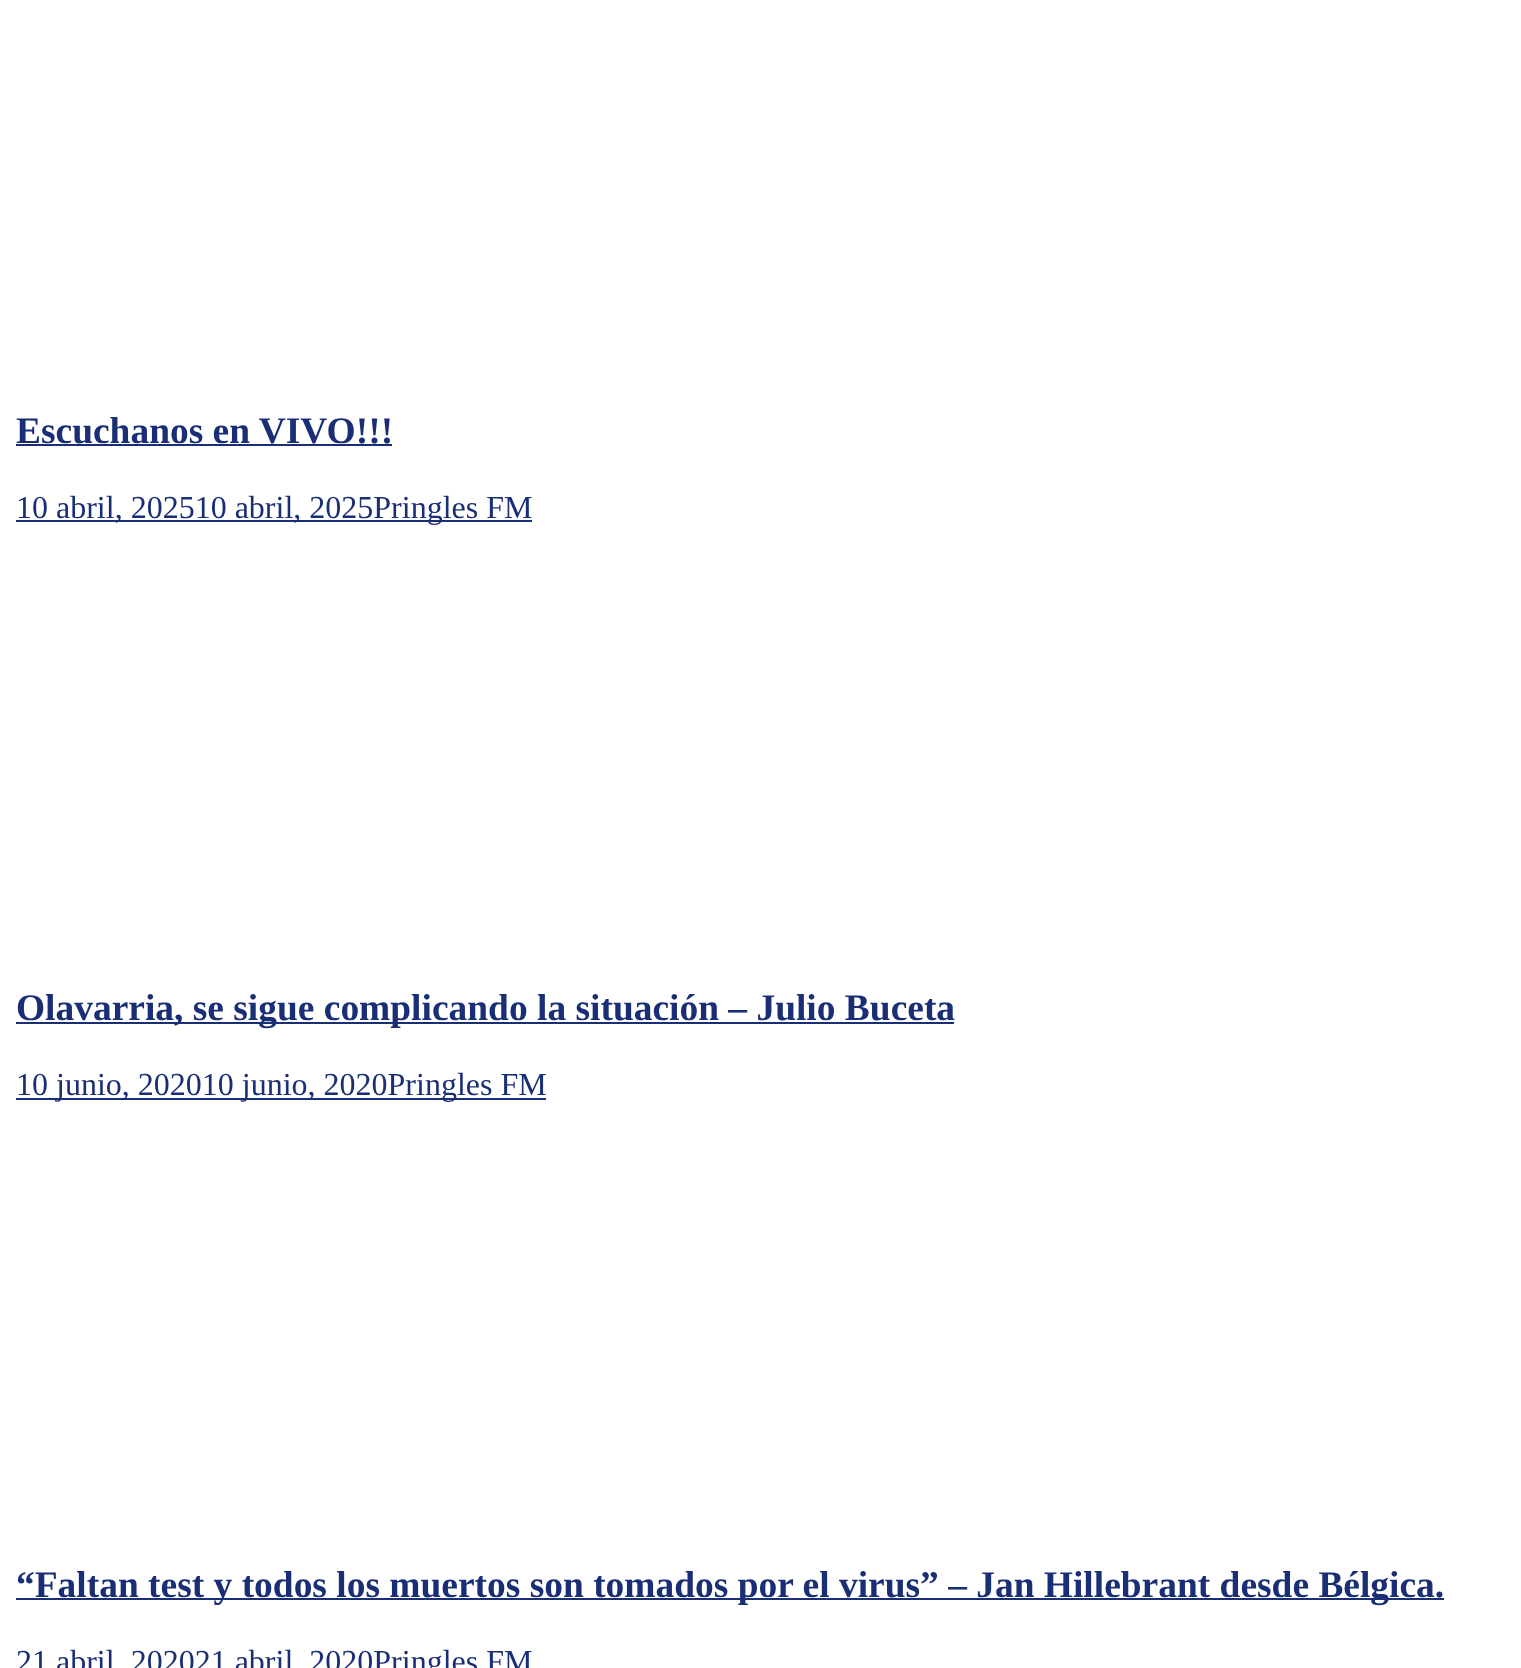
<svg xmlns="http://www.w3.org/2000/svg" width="1521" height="1668">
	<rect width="100%" height="100%" fill="#FFFFFF" />
	<text x="16" y="443" font-family="Liberation Serif" font-size="37.45" font-weight="700" fill="#1A2E75">Escuchanos en VIVO!!!</text>
	<rect x="16" y="444" width="376" height="2" fill="#1A2E75" />
	<rect x="16" y="520" width="516" height="2" fill="#1A2E75" />
	<text x="16" y="518" font-family="Liberation Serif" font-size="32" fill="#1A2E75">10 abril, 202510 abril, 2025Pringles FM</text>
	<rect x="16" y="1022" width="938" height="2" fill="#1A2E75" />
	<text x="16" y="1020" font-family="Liberation Serif" font-size="37.45" font-weight="700" fill="#1A2E75">Olavarria, se sigue complicando la situación – Julio Buceta</text>
	<rect x="16" y="1098" width="530" height="2" fill="#1A2E75" />
	<text x="16" y="1095" font-family="Liberation Serif" font-size="32" fill="#1A2E75">10 junio, 202010 junio, 2020Pringles FM</text>
	<rect x="16" y="1598" width="1428" height="2" fill="#1A2E75" />
	<text x="16" y="1597" font-family="Liberation Serif" font-size="37.45" font-weight="700" fill="#1A2E75">“Faltan test y todos los muertos son tomados por el virus” – Jan Hillebrant desde Bélgica.</text>
	<text x="16" y="1672" font-family="Liberation Serif" font-size="32" fill="#1A2E75">21 abril, 202021 abril, 2020Pringles FM</text>
</svg>
